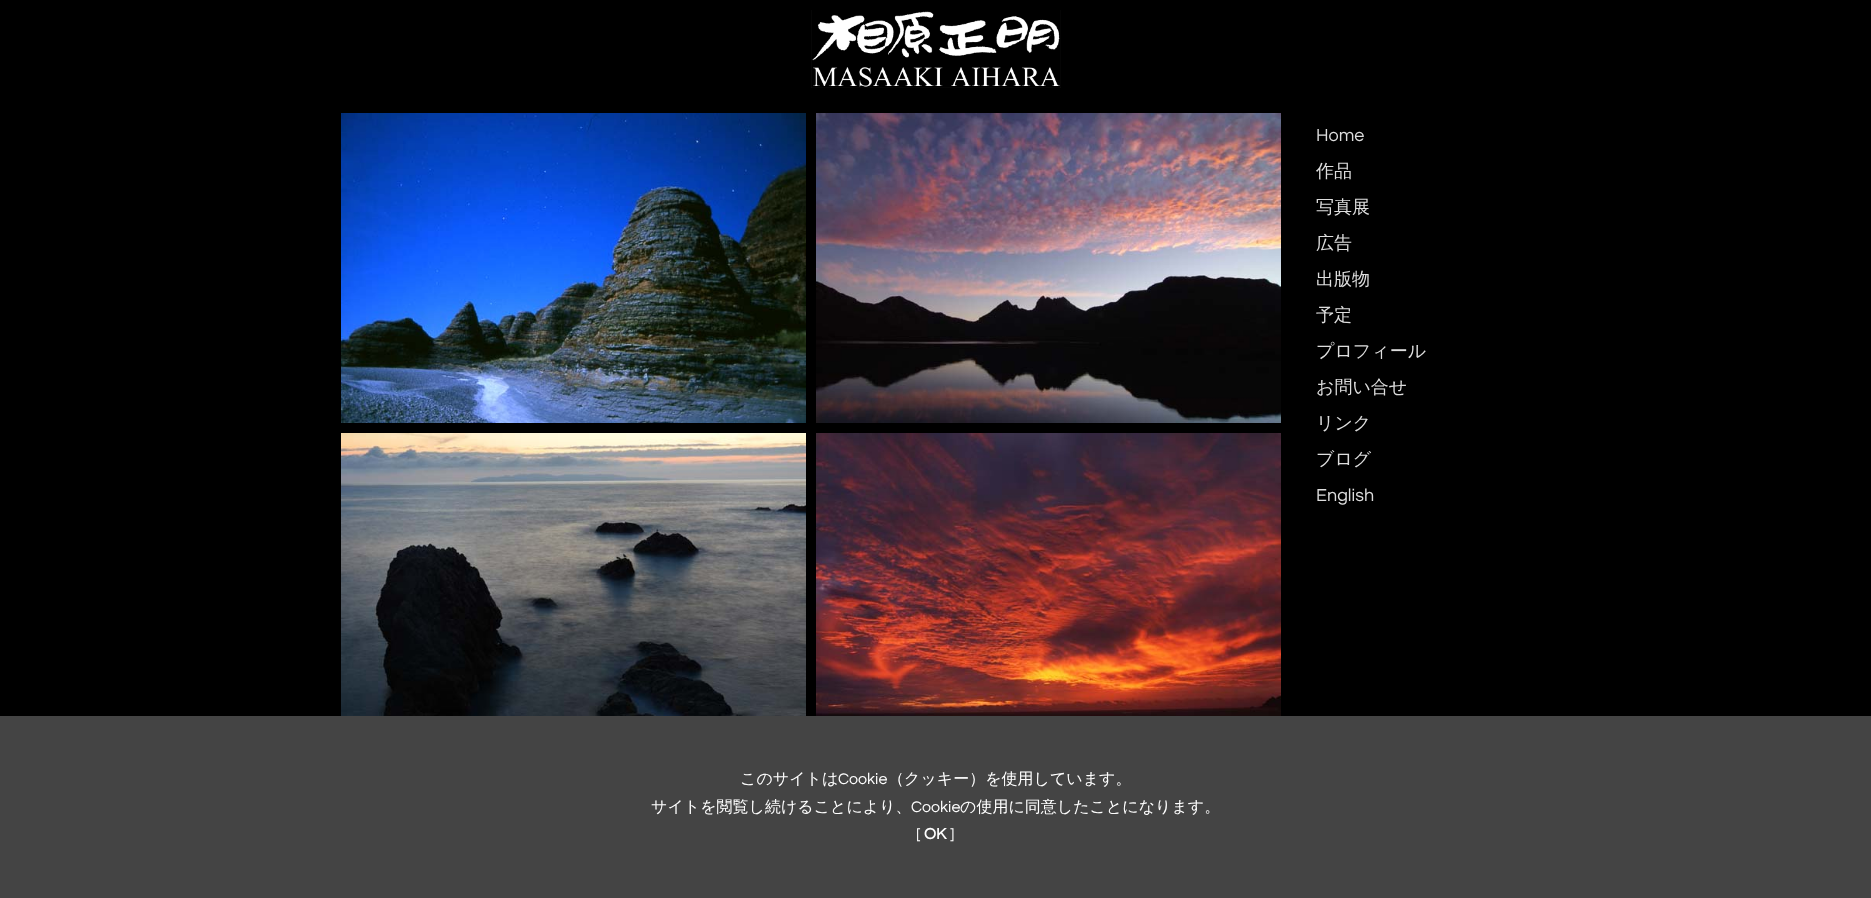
<svg xmlns="http://www.w3.org/2000/svg" width="1871" height="898">
	<rect width="100%" height="100%" fill="#000000" />
	<image x="811" y="10" width="250" height="78" href="assets/img1.png" />
	<image x="341" y="113" width="465" height="310" href="assets/img2.png" />
	<image x="816" y="113" width="465" height="310" href="assets/img3.png" />
	<image x="341" y="433" width="465" height="283" href="assets/img4.png" />
	<image x="816" y="433" width="465" height="283" href="assets/img5.png" />
	<text x="1316" y="141" font-family="Questrial" font-size="18" fill="#DDDDDD">Home</text>
	<g font-family="WenQuanYi Zen Hei" font-size="18" font-weight="500" fill="#DDDDDD">
		<text x="1316" y="177">作品</text>
		<text x="1316" y="213">写真展</text>
		<text x="1316" y="249">広告</text>
		<text x="1316" y="285">出版物</text>
		<text x="1316" y="321">予定</text>
		<text x="1316" y="357">プロフィール</text>
		<text x="1316" y="393">お問い合せ</text>
		<text x="1316" y="429">リンク</text>
		<text x="1316" y="465">ブログ</text>
	</g>
	<text x="1316" y="501" font-family="Questrial" font-size="18" fill="#DDDDDD">English</text>
	<rect x="0" y="716" width="1871" height="182" fill="#444444" />
	<text x="740" y="784" font-family="WenQuanYi Zen Hei" font-size="16" font-weight="500" fill="#FFFFFF">このサイトは</text>
	<text x="838" y="784" font-family="Questrial" font-size="16" fill="#FFFFFF">Cookie</text>
	<g font-family="WenQuanYi Zen Hei" font-size="16" font-weight="500" fill="#FFFFFF">
		<text x="888" y="784">（クッキー）を使用しています。</text>
		<text x="651" y="812">サイトを閲覧し続けることにより、</text>
	</g>
	<text x="911" y="812" font-family="Questrial" font-size="16" fill="#FFFFFF">Cookie</text>
	<text x="960" y="812" font-family="WenQuanYi Zen Hei" font-size="16" font-weight="500" fill="#FFFFFF">の使用に同意したことになります。</text>
	<text x="916" y="839" font-family="Questrial" font-size="16" fill="#FFFFFF">[</text>
	<text x="924" y="839" font-family="Questrial" font-size="16" font-weight="700" fill="#FFFFFF">OK</text>
	<text x="950" y="839" font-family="Questrial" font-size="16" fill="#FFFFFF">]</text>
</svg>
